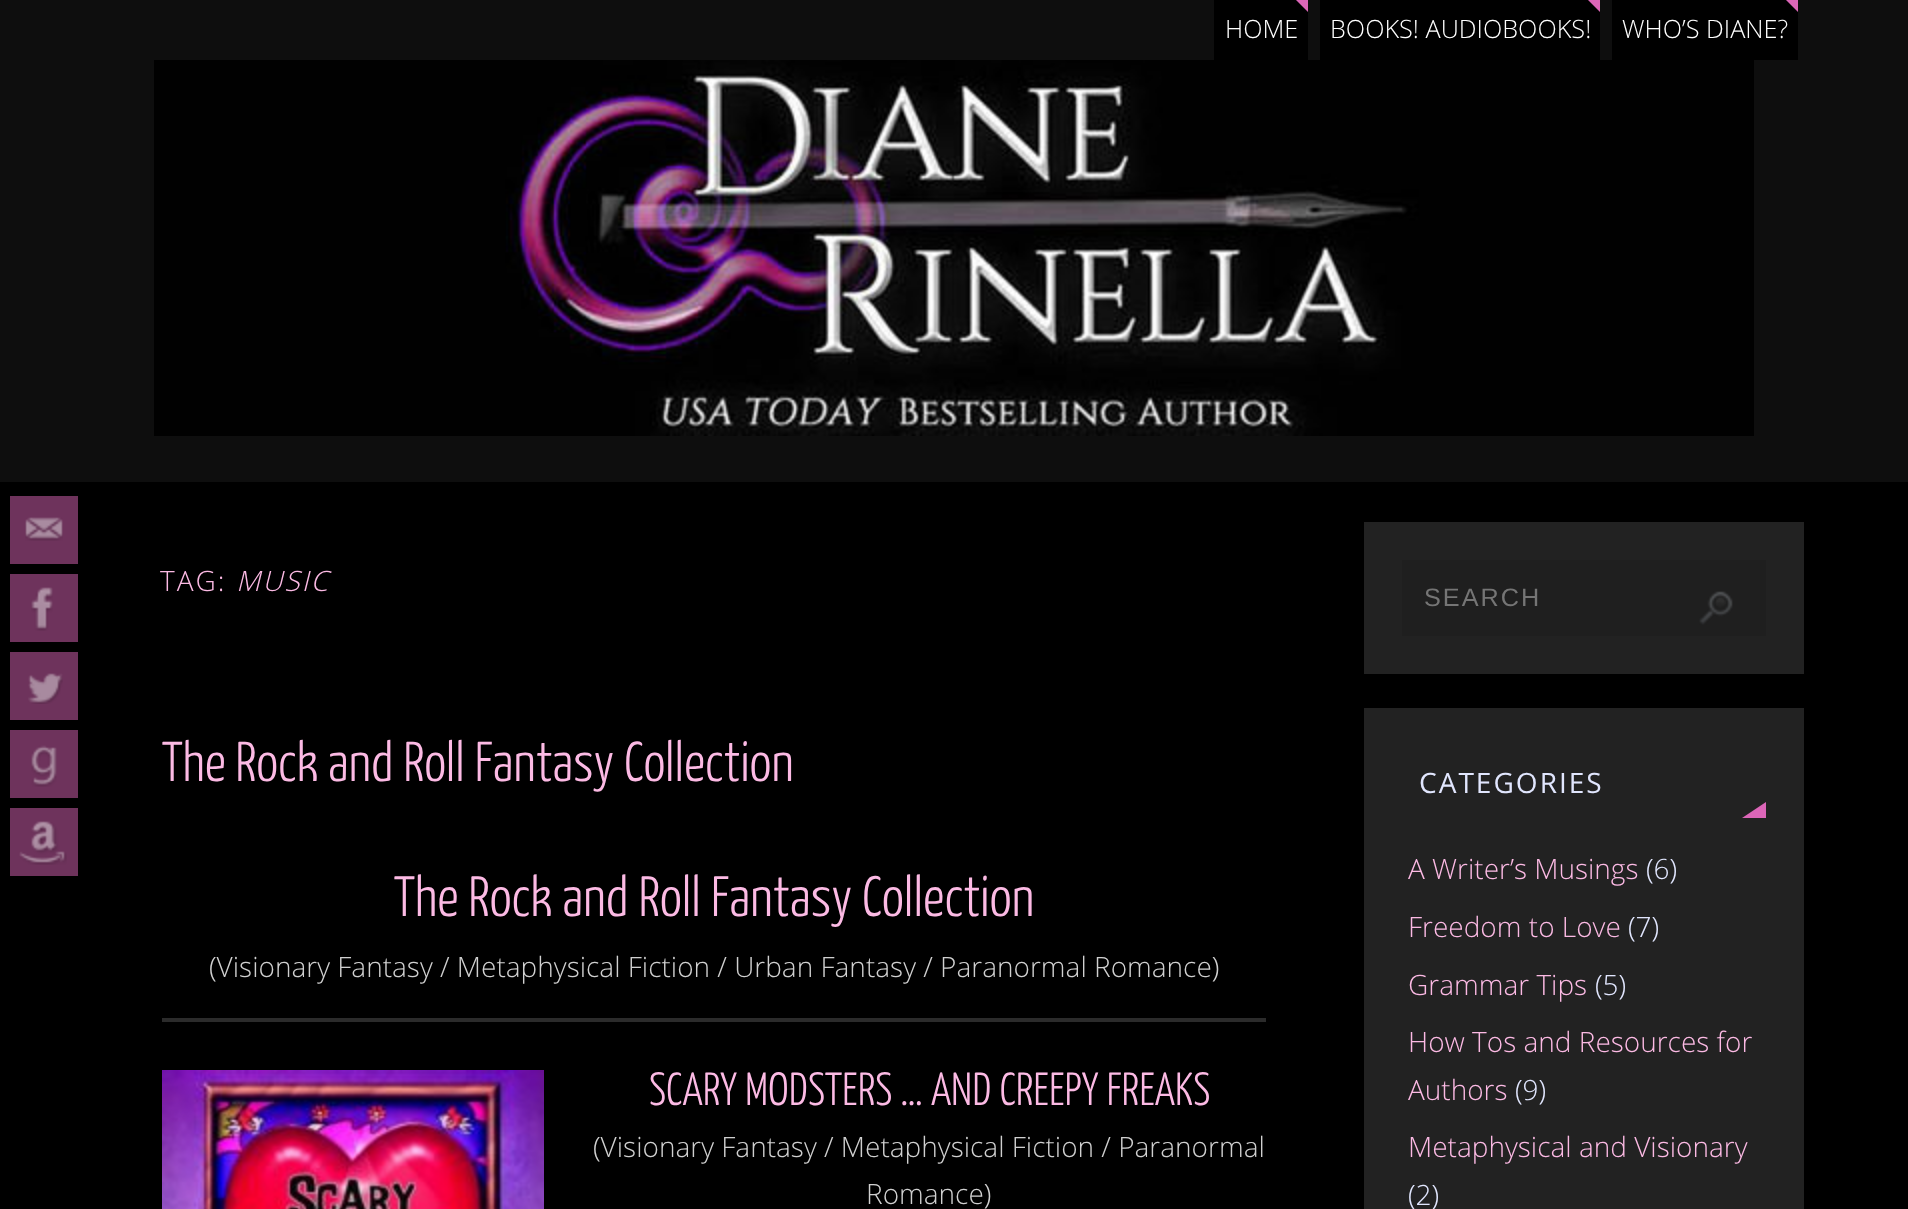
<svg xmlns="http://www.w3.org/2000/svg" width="1908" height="1209">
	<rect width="100%" height="100%" fill="#000000" />
	<rect x="0" y="0" width="1908" height="482" fill="#0E0E0E" />
	<rect x="1214" y="0" width="94" height="60" fill="#000000" />
	<path d="M1296 0H1308V12Z" fill="#DC66B8" />
	<text x="1225" y="38" font-family="Open Sans" font-size="25.25" font-weight="300" fill="#FFFFFF">HOME</text>
	<rect x="1320" y="0" width="280" height="60" fill="#000000" />
	<path d="M1588 0H1600V12Z" fill="#DC66B8" />
	<text x="1330" y="38" font-family="Open Sans" font-size="25.25" font-weight="300" fill="#FFFFFF">BOOKS! AUDIOBOOKS!</text>
	<rect x="1612" y="0" width="186" height="60" fill="#000000" />
	<path d="M1786 0H1798V12Z" fill="#DC66B8" />
	<text x="1622" y="38" font-family="Open Sans" font-size="25.25" font-weight="300" fill="#FFFFFF">WHO’S DIANE?</text>
	<image x="154" y="60" width="1600" height="376" href="assets/img1.png" />
	<rect x="10" y="496" width="68" height="68" fill="#6E335C" />
	<image x="25" y="517" width="38" height="24" href="assets/img2.png" />
	<rect x="10" y="574" width="68" height="68" fill="#6E335C" />
	<image x="31" y="587" width="22" height="44" href="assets/img3.png" />
	<rect x="10" y="652" width="68" height="68" fill="#6E335C" />
	<image x="28" y="673" width="35" height="31" href="assets/img4.png" />
	<rect x="10" y="730" width="68" height="68" fill="#6E335C" />
	<image x="31" y="745" width="26" height="42" href="assets/img5.png" />
	<rect x="10" y="808" width="68" height="68" fill="#6E335C" />
	<image x="19" y="821" width="48" height="44" href="assets/img6.png" />
	<text x="160" y="591" font-family="Open Sans" font-size="28" font-weight="300" letter-spacing="2" fill="#FCBAE4">TAG:</text>
	<text x="236" y="591" font-family="Open Sans" font-size="28" font-weight="300" font-style="italic" letter-spacing="2" fill="#FCBAE4">MUSIC</text>
	<text x="162" y="781" font-family="Yanone Kaffeesatz" font-size="56" font-weight="300" fill="#FCBAE4">The Rock and Roll Fantasy Collection</text>
	<text x="394" y="916" font-family="Yanone Kaffeesatz" font-size="56.75" font-weight="300" fill="#FCBAE4">The Rock and Roll Fantasy Collection</text>
	<text x="209" y="977" font-family="Open Sans" font-size="28" font-weight="300" fill="#D0D0D0">(Visionary Fantasy / Metaphysical Fiction / Urban Fantasy / Paranormal Romance)</text>
	<rect x="162" y="1018" width="1104" height="4" fill="#2B2B2B" />
	<image x="162" y="1070" width="382" height="139" href="assets/img7.png" />
	<text x="649" y="1105" font-family="Yanone Kaffeesatz" font-size="46.4" font-weight="300" fill="#FCBAE4">SCARY MODSTERS … AND CREEPY FREAKS</text>
	<g font-family="Open Sans" font-size="28" font-weight="300" fill="#D0D0D0">
		<text x="593" y="1157">(Visionary Fantasy / Metaphysical Fiction / Paranormal</text>
		<text x="866" y="1204">Romance)</text>
	</g>
	<rect x="1364" y="522" width="440" height="152" fill="#222222" />
	<rect x="1402" y="560" width="364" height="76" fill="#1F1F1F" />
	<text x="1424" y="606" font-family="Liberation Sans" font-size="25.25" letter-spacing="2" fill="#757575">SEARCH</text>
	<image x="1699" y="591" width="34" height="34" href="assets/img8.png" />
	<rect x="1364" y="708" width="440" height="501" fill="#222222" />
	<text x="1419" y="793" font-family="Open Sans" font-size="28" letter-spacing="2" fill="#E1E6FE">CATEGORIES</text>
	<path d="M1766 818H1742L1766 802Z" fill="#DC66B8" />
	<text x="1408" y="879" font-family="Open Sans" font-size="28" font-weight="300" fill="#FCBAE4">A Writer’s Musings</text>
	<text x="1646" y="879" font-family="Open Sans" font-size="28" font-weight="300" fill="#E1E6FE">(6)</text>
	<text x="1408" y="937" font-family="Open Sans" font-size="28" font-weight="300" fill="#FCBAE4">Freedom to Love</text>
	<text x="1628" y="937" font-family="Open Sans" font-size="28" font-weight="300" fill="#E1E6FE">(7)</text>
	<text x="1408" y="995" font-family="Open Sans" font-size="28" font-weight="300" fill="#FCBAE4">Grammar Tips</text>
	<text x="1595" y="995" font-family="Open Sans" font-size="28" font-weight="300" fill="#E1E6FE">(5)</text>
	<g font-family="Open Sans" font-size="28" font-weight="300" fill="#FCBAE4">
		<text x="1408" y="1052">How Tos and Resources for</text>
		<text x="1408" y="1100">Authors</text>
	</g>
	<text x="1515" y="1100" font-family="Open Sans" font-size="28" font-weight="300" fill="#E1E6FE">(9)</text>
	<text x="1408" y="1157" font-family="Open Sans" font-size="28" font-weight="300" fill="#FCBAE4">Metaphysical and Visionary</text>
	<text x="1408" y="1205" font-family="Open Sans" font-size="28" font-weight="300" fill="#E1E6FE">(2)</text>
</svg>
